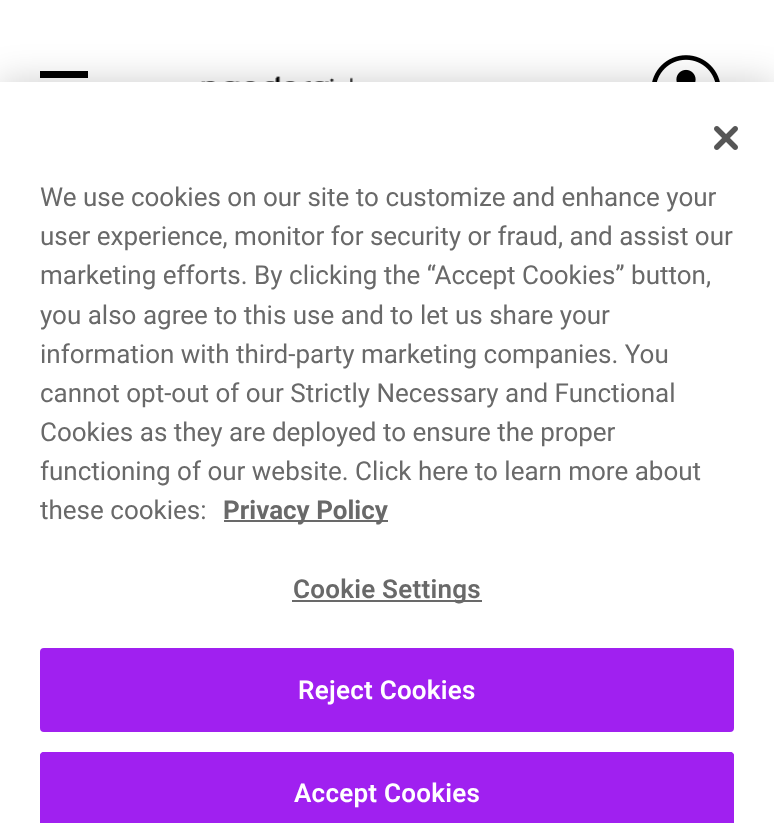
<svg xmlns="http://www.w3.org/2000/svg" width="774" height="823">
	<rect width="100%" height="100%" fill="#FFFFFF" />
	<path d="M40 71H88V78H40ZM40 88H88V95H40ZM40 104H88V112H40Z" fill="#000000" fill-rule="evenodd" />
	<image x="201" y="76" width="152" height="6" href="assets/img1.png" />
	<image x="652" y="55" width="68" height="27" href="assets/img2.png" />
	<rect x="0" y="82" width="774" height="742" fill="#000000" fill-opacity="0.2" filter="blur(18px)" />
	<rect x="0" y="82" width="774" height="741" fill="#FFFFFF" />
	<image x="714" y="126" width="24" height="24" href="assets/img3.png" />
	<g font-family="Roboto" font-size="26" fill="#696969">
		<text x="40" y="206">We use cookies on our site to customize and enhance your</text>
		<text x="40" y="245">user experience, monitor for security or fraud, and assist our</text>
		<text x="40" y="284">marketing efforts. By clicking the “Accept Cookies” button,</text>
		<text x="40" y="324">you also agree to this use and to let us share your</text>
		<text x="40" y="363">information with third-party marketing companies. You</text>
		<text x="40" y="402">cannot opt-out of our Strictly Necessary and Functional</text>
		<text x="40" y="441">Cookies as they are deployed to ensure the proper</text>
		<text x="40" y="480">functioning of our website. Click here to learn more about</text>
		<text x="40" y="519">these cookies:</text>
	</g>
	<rect x="224" y="520" width="164" height="2" fill="#696969" />
	<text x="223" y="519" font-family="Roboto" font-size="26" font-weight="700" fill="#696969">Privacy Policy</text>
	<rect x="292" y="600" width="190" height="2" fill="#696969" />
	<text x="293" y="598" font-family="Roboto" font-size="26" font-weight="600" letter-spacing="0.25" fill="#696969">Cookie Settings</text>
	<rect x="41" y="649" width="692" height="82" rx="3" fill="#A020F0" stroke="#A020F0" stroke-width="2" />
	<text x="298" y="699" font-family="Roboto" font-size="26" font-weight="600" letter-spacing="0.25" fill="#FFFFFF">Reject Cookies</text>
	<path d="M44 752H730C732 752 734 754 734 756V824H40V756C40 754 42 752 44 752Z" fill="#A020F0" />
	<rect x="41" y="753" width="692" height="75" rx="3" fill="none" stroke="#A020F0" stroke-width="2" />
	<text x="294" y="802" font-family="Roboto" font-size="26" font-weight="600" letter-spacing="0.25" fill="#FFFFFF">Accept Cookies</text>
</svg>
